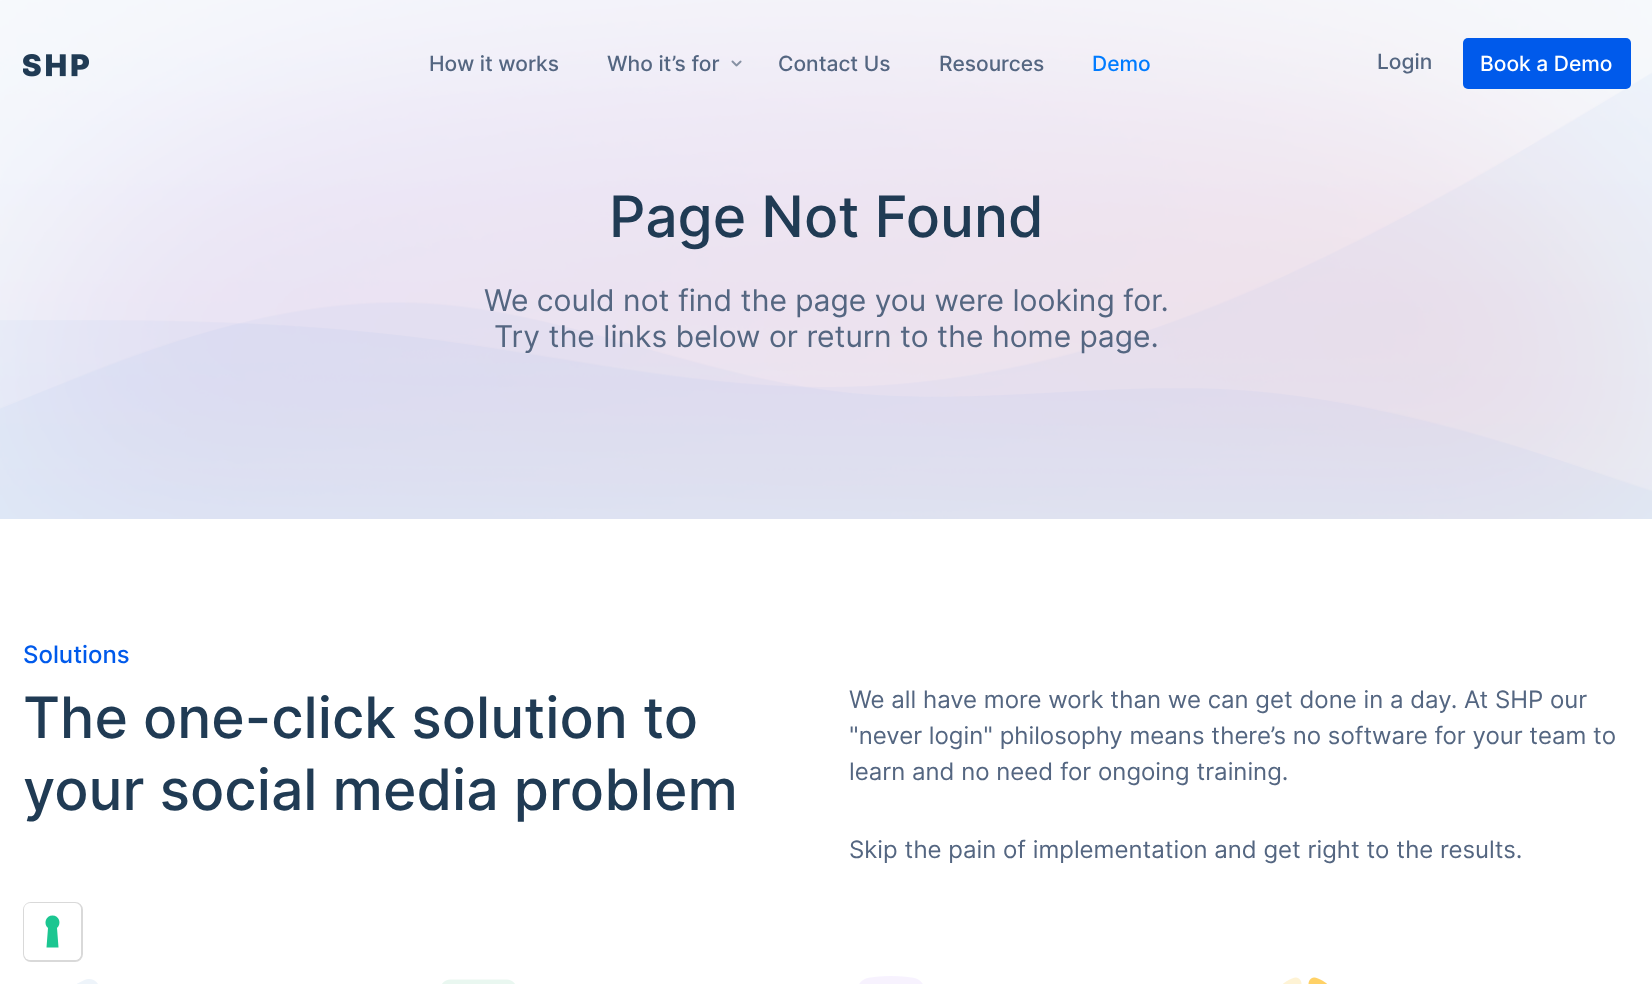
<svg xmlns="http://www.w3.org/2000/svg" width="1652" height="984">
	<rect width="100%" height="100%" fill="#FFFFFF" />
	<image x="0" y="0" width="1652" height="519" href="assets/img3.png" />
	<image x="23" y="54" width="66" height="23" href="assets/img1.png" />
	<g font-family="Inter" font-size="21" font-weight="500" fill="#546681">
		<text x="429" y="71">How it works</text>
		<text x="607" y="71">Who it’s for</text>
	</g>
	<image x="731" y="60" width="11" height="7" href="assets/img2.png" />
	<g font-family="Inter" font-size="21" font-weight="500" fill="#546681">
		<text x="778" y="71">Contact Us</text>
		<text x="939" y="71">Resources</text>
	</g>
	<text x="1092" y="71" font-family="Inter" font-size="21" font-weight="500" fill="#007BFF">Demo</text>
	<text x="1377" y="69" font-family="Inter" font-size="21" font-weight="500" fill="#546681">Login</text>
	<rect x="1463" y="38" width="168" height="51" rx="5" fill="#005AEB" />
	<text x="1480" y="71" font-family="Inter" font-size="21" font-weight="500" fill="#FFFFFF">Book a Demo</text>
	<text x="609" y="237" font-family="Inter" font-size="57" font-weight="500" fill="#203B54">Page Not Found</text>
	<g font-family="Inter" font-size="30" fill="#546681">
		<text x="484" y="311">We could not find the page you were looking for.</text>
		<text x="494" y="347">Try the links below or return to the home page.</text>
	</g>
	<text x="23" y="663" font-family="Inter" font-size="24" font-weight="500" fill="#005AEB">Solutions</text>
	<g font-family="Inter" font-size="57" font-weight="500" fill="#203B54">
		<text x="23" y="738">The one-click solution to</text>
		<text x="23" y="810">your social media problem</text>
	</g>
	<g font-family="Inter" font-size="24" fill="#546681">
		<text x="849" y="708">We all have more work than we can get done in a day. At SHP our</text>
		<text x="849" y="744">"never login" philosophy means there’s no software for your team to</text>
		<text x="849" y="780">learn and no need for ongoing training.</text>
		<text x="849" y="858">Skip the pain of implementation and get right to the results.</text>
	</g>
	<image x="77" y="979" width="21" height="5" href="assets/img4.png" />
	<image x="442" y="979" width="73" height="5" href="assets/img5.png" />
	<image x="859" y="976" width="64" height="8" href="assets/img6.png" />
	<image x="1283" y="977" width="44" height="7" href="assets/img7.png" />
	<rect x="24" y="903" width="58" height="58" rx="7" fill="none" stroke="#D9D9D9" stroke-width="2" />
	<rect x="24" y="903" width="57" height="57" rx="6" fill="#FFFFFF" />
	<path d="M52.5 915.5C59 915.5 62 923.5 57 928L58.5 947.5H46.5L48 928C43 923.5 46 915.5 52.5 915.5Z" fill="#1CC691" fill-rule="evenodd" />
</svg>
